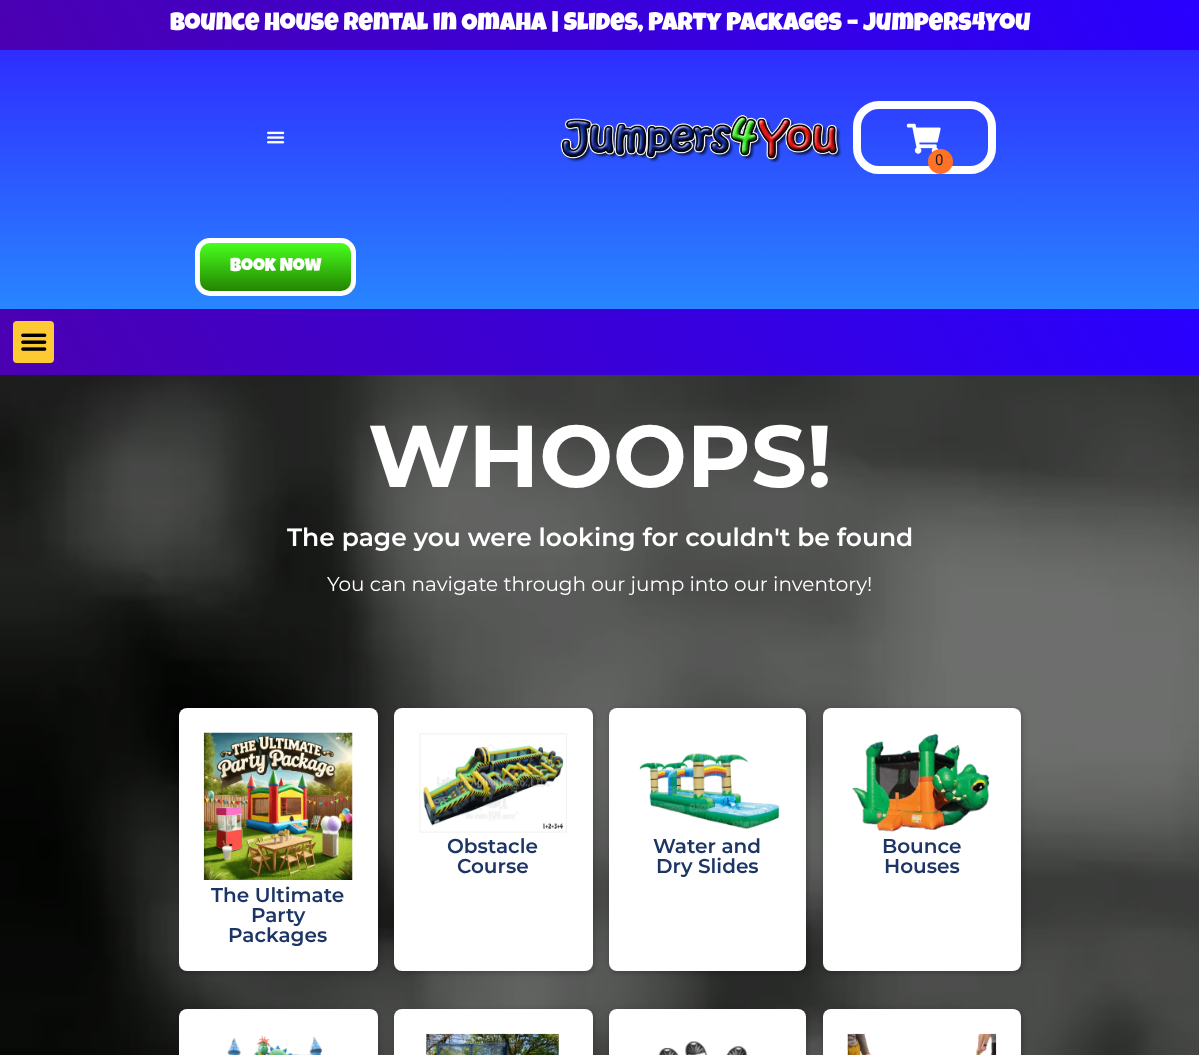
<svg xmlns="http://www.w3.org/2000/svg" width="1199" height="1055">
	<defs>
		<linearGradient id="g1" gradientUnits="userSpaceOnUse" x1="139" y1="291" x2="1061" y2="-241"><stop offset="0" stop-color="#4B00B1" /><stop offset="1" stop-color="#2900FF" /></linearGradient>
		<linearGradient id="g2" gradientUnits="userSpaceOnUse" x1="600" y1="50" x2="600" y2="309"><stop offset="0" stop-color="#2F2DFF" /><stop offset="1" stop-color="#2886FF" /></linearGradient>
		<clipPath id="clip1"><rect x="195" y="238" width="161" height="58" rx="15" /></clipPath>
		<linearGradient id="g3" gradientUnits="userSpaceOnUse" x1="276" y1="243" x2="276" y2="291"><stop offset="0" stop-color="#48FF1E" /><stop offset="1" stop-color="#238400" /></linearGradient>
		<linearGradient id="g4" gradientUnits="userSpaceOnUse" x1="136" y1="610" x2="1064" y2="74"><stop offset="0" stop-color="#4B00B1" /><stop offset="1" stop-color="#2900FF" /></linearGradient>
	</defs>
	<rect width="100%" height="100%" fill="#FFFFFF" />
	<rect x="0" y="0" width="1199" height="50" fill="url(#g1)" />
	<text x="170" y="30" font-family="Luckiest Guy" font-size="25" fill="#FFFFFF">Bounce House Rental in Omaha | Slides, Party Packages – Jumpers4You</text>
	<rect x="0" y="50" width="1199" height="259" fill="url(#g2)" />
	<image x="267" y="131" width="18" height="13" href="assets/img1.png" />
	<image x="560" y="115" width="282" height="48" href="assets/img2.png" />
	<rect x="857" y="105" width="135" height="65" rx="22" fill="none" stroke="#FFFFFF" stroke-width="8" />
	<image x="906" y="123" width="35" height="31" href="assets/img3.png" />
	<circle cx="940.5" cy="161.5" r="12.5" fill="#FF7226" />
	<text x="935" y="165" font-family="Roboto" font-size="15" fill="#1E1E1E">0</text>
	<g clip-path="url(#clip1)">
		<rect x="195" y="243" width="161" height="48" fill="url(#g3)" />
	</g>
	<rect x="197.5" y="240.5" width="156" height="53" rx="12.5" fill="none" stroke="#FFFFFF" stroke-width="5" />
	<text x="230" y="271" font-family="Luckiest Guy" font-size="18.75" fill="#FFFFFF">Book Now</text>
	<rect x="0" y="309" width="1199" height="66" fill="url(#g4)" />
	<rect x="13" y="321" width="41" height="42" rx="4" fill="#FECA33" />
	<image x="21" y="333" width="26" height="18" href="assets/img4.png" />
	<image x="0" y="375" width="1199" height="680" href="assets/img5.png" />
	<text x="368" y="487" font-family="Montserrat" font-size="87.5" font-weight="700" fill="#FFFFFF">WHOOPS!</text>
	<text x="287" y="546" font-family="Montserrat" font-size="25" font-weight="600" fill="#FFFFFF">The page you were looking for couldn't be found</text>
	<text x="327" y="591" font-family="Montserrat" font-size="20" fill="#FFFFFF">You can navigate through our jump into our inventory!</text>
	<rect x="395" y="709" width="199" height="264" rx="8" fill="#000000" fill-opacity="0.2" filter="blur(2px)" />
	<rect x="394" y="708" width="199" height="263" rx="8" fill="#FFFFFF" />
	<image x="419" y="733" width="148" height="100" href="assets/img6.png" />
	<g font-family="Montserrat" font-size="20" font-weight="600" fill="#1C3565">
		<text x="447" y="853">Obstacle</text>
		<text x="457" y="873">Course</text>
	</g>
	<rect x="610" y="709" width="198" height="264" rx="8" fill="#000000" fill-opacity="0.2" filter="blur(2px)" />
	<rect x="609" y="708" width="197" height="263" rx="8" fill="#FFFFFF" />
	<image x="639" y="753" width="141" height="77" href="assets/img7.png" />
	<g font-family="Montserrat" font-size="20" font-weight="600" fill="#1C3565">
		<text x="653" y="853">Water and</text>
		<text x="656" y="873">Dry Slides</text>
	</g>
	<rect x="824" y="709" width="199" height="264" rx="8" fill="#000000" fill-opacity="0.2" filter="blur(2px)" />
	<rect x="823" y="708" width="198" height="263" rx="8" fill="#FFFFFF" />
	<image x="852" y="733" width="138" height="99" href="assets/img8.png" />
	<g font-family="Montserrat" font-size="20" font-weight="600" fill="#1C3565">
		<text x="882" y="853">Bounce</text>
		<text x="884" y="873">Houses</text>
	</g>
	<rect x="180" y="709" width="199" height="264" rx="8" fill="#000000" fill-opacity="0.2" filter="blur(2px)" />
	<rect x="179" y="708" width="199" height="263" rx="8" fill="#FFFFFF" />
	<image x="203" y="732" width="150" height="148" href="assets/img9.png" />
	<g font-family="Montserrat" font-size="20" font-weight="600" fill="#1C3565">
		<text x="211" y="902">The Ultimate</text>
		<text x="251" y="922">Party</text>
		<text x="228" y="942">Packages</text>
	</g>
	<rect x="180" y="1010" width="199" height="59" rx="8" fill="#000000" fill-opacity="0.2" filter="blur(2px)" />
	<rect x="179" y="1009" width="199" height="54" rx="8" fill="#FFFFFF" />
	<image x="227" y="1035" width="96" height="20" href="assets/img10.png" />
	<rect x="395" y="1010" width="199" height="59" rx="8" fill="#000000" fill-opacity="0.2" filter="blur(2px)" />
	<rect x="394" y="1009" width="199" height="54" rx="8" fill="#FFFFFF" />
	<image x="426" y="1033" width="133" height="22" href="assets/img11.png" />
	<rect x="610" y="1010" width="198" height="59" rx="8" fill="#000000" fill-opacity="0.2" filter="blur(2px)" />
	<rect x="609" y="1009" width="197" height="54" rx="8" fill="#FFFFFF" />
	<image x="658" y="1041" width="90" height="14" href="assets/img12.png" />
	<rect x="824" y="1010" width="199" height="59" rx="8" fill="#000000" fill-opacity="0.2" filter="blur(2px)" />
	<rect x="823" y="1009" width="198" height="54" rx="8" fill="#FFFFFF" />
	<image x="847" y="1033" width="150" height="22" href="assets/img13.png" />
</svg>
